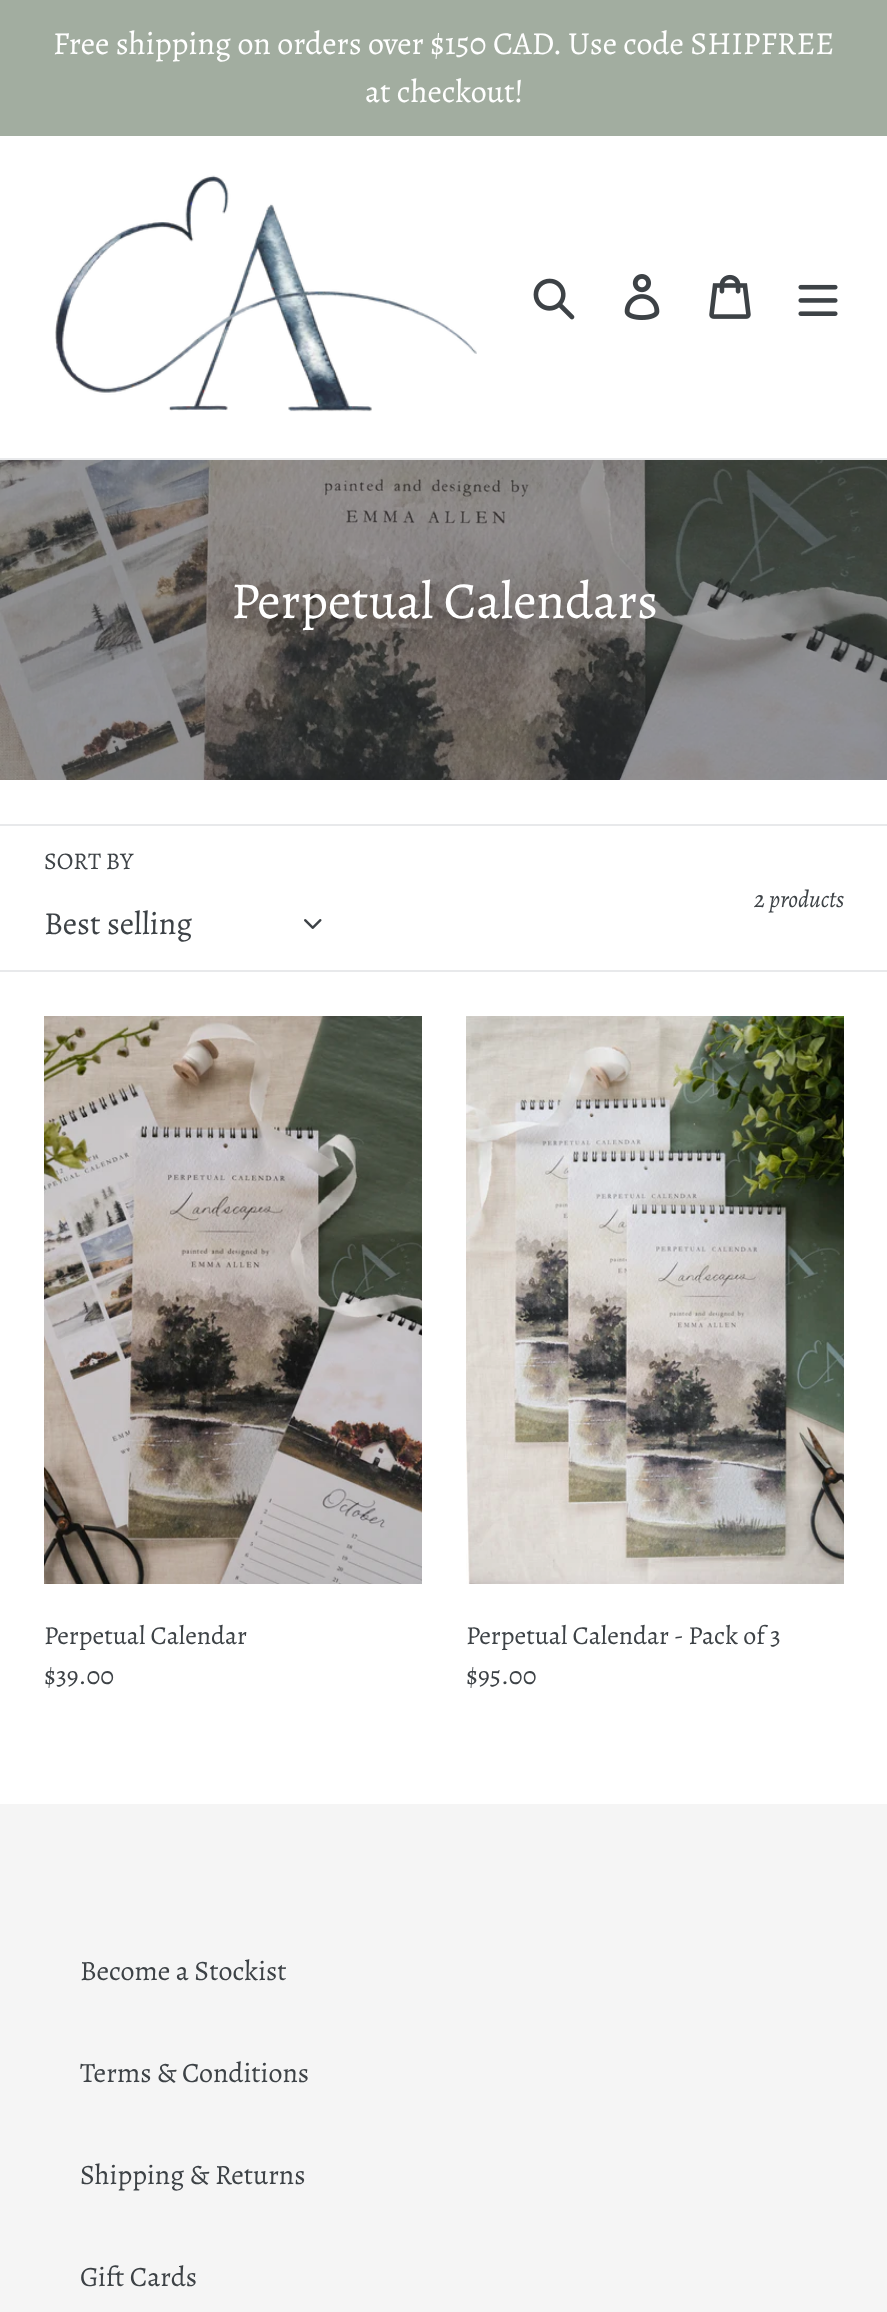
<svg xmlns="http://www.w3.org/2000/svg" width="887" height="2312">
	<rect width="100%" height="100%" fill="#FFFFFF" />
	<rect x="0" y="0" width="887" height="136" fill="#A2ADA0" />
	<g font-family="Alegreya" font-size="32" fill="#FFFFFF">
		<text x="53" y="54">Free shipping on orders over $150 CAD. Use code SHIPFREE</text>
		<text x="365" y="102">at checkout!</text>
	</g>
	<rect x="0" y="458" width="887" height="2" fill="#E8E9EB" />
	<image x="55" y="175" width="422" height="237" href="assets/img1.png" />
	<image x="533" y="278" width="42" height="42" href="assets/img2.png" />
	<image x="624" y="274" width="36" height="46" href="assets/img3.png" />
	<image x="709" y="274" width="42" height="45" href="assets/img4.png" />
	<image x="798" y="284" width="40" height="32" href="assets/img5.png" />
	<image x="0" y="460" width="887" height="320" href="assets/img6.png" />
	<text x="231" y="618" font-family="Alegreya" font-size="52" fill="#FFFFFF">Perpetual Calendars</text>
	<rect x="0" y="824" width="887" height="2" fill="#E8E9EB" />
	<rect x="0" y="970" width="887" height="2" fill="#E8E9EB" />
	<text x="44" y="869" font-family="Alegreya" font-size="24" fill="#3D4246">SORT BY</text>
	<text x="44" y="934" font-family="Alegreya" font-size="32" fill="#3D4246">Best selling</text>
	<image x="304" y="919" width="18" height="10" href="assets/img7.png" />
	<text x="754" y="907" font-family="Alegreya" font-size="24" font-style="italic" fill="#3D4246">2 products</text>
	<image x="44" y="1016" width="378" height="568" href="assets/img8.png" />
	<g font-family="Alegreya" font-size="26" fill="#3D4246">
		<text x="44" y="1644">Perpetual Calendar</text>
		<text x="44" y="1684">$39.00</text>
	</g>
	<image x="466" y="1016" width="378" height="568" href="assets/img9.png" />
	<g font-family="Alegreya" font-size="26" fill="#3D4246">
		<text x="466" y="1644">Perpetual Calendar - Pack of 3</text>
		<text x="466" y="1684">$95.00</text>
	</g>
	<rect x="0" y="1804" width="887" height="508" fill="#F5F5F5" />
	<g font-family="Alegreya" font-size="28" fill="#3D4246">
		<text x="80" y="1980">Become a Stockist</text>
		<text x="80" y="2082">Terms &amp; Conditions</text>
		<text x="80" y="2184">Shipping &amp; Returns</text>
		<text x="80" y="2286">Gift Cards</text>
	</g>
</svg>
